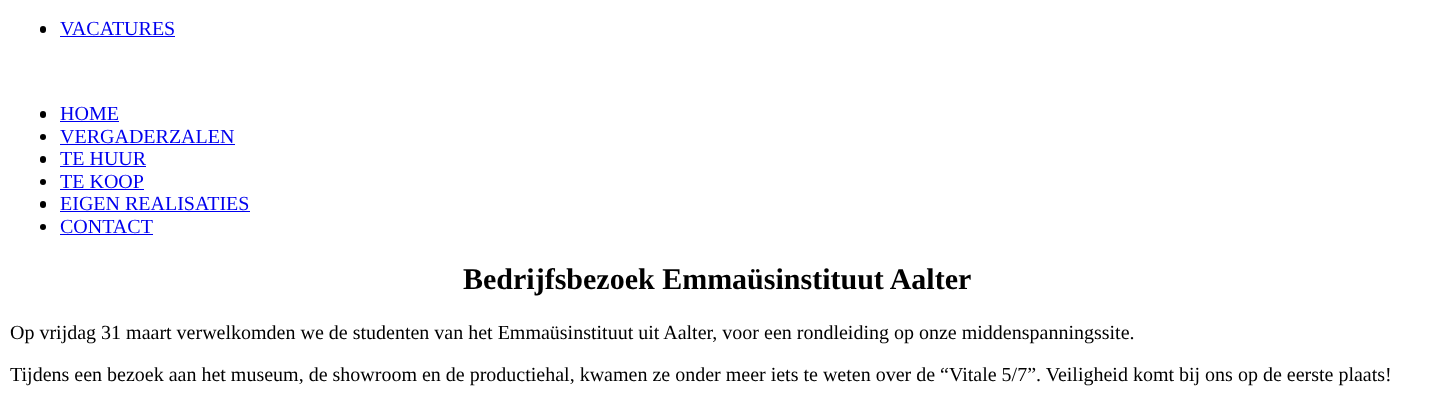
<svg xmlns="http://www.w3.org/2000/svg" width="1433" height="396">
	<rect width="100%" height="100%" fill="#FFFFFF" />
	<rect x="40" y="26" width="6" height="7" rx="3" fill="#000000" />
	<text x="60" y="35" font-family="Liberation Serif" font-size="20" fill="#0000EE">VACATURES</text>
	<rect x="60" y="36" width="115" height="1" fill="#0000EE" />
	<rect x="40" y="111" width="6" height="7" rx="3" fill="#000000" />
	<text x="60" y="120" font-family="Liberation Serif" font-size="20" fill="#0000EE">HOME</text>
	<rect x="60" y="121" width="59" height="1" fill="#0000EE" />
	<circle cx="43" cy="137" r="3" fill="#000000" />
	<text x="60" y="143" font-family="Liberation Serif" font-size="20" fill="#0000EE">VERGADERZALEN</text>
	<rect x="60" y="144" width="175" height="1" fill="#0000EE" />
	<rect x="40" y="156" width="6" height="7" rx="3" fill="#000000" />
	<text x="60" y="165" font-family="Liberation Serif" font-size="20" fill="#0000EE">TE HUUR</text>
	<rect x="60" y="166" width="86" height="1" fill="#0000EE" />
	<circle cx="43" cy="182" r="3" fill="#000000" />
	<text x="60" y="188" font-family="Liberation Serif" font-size="20" fill="#0000EE">TE KOOP</text>
	<rect x="60" y="189" width="84" height="1" fill="#0000EE" />
	<rect x="40" y="201" width="6" height="7" rx="3" fill="#000000" />
	<text x="60" y="210" font-family="Liberation Serif" font-size="20" fill="#0000EE">EIGEN REALISATIES</text>
	<rect x="60" y="211" width="190" height="1" fill="#0000EE" />
	<circle cx="43" cy="227" r="3" fill="#000000" />
	<text x="60" y="233" font-family="Liberation Serif" font-size="20" fill="#0000EE">CONTACT</text>
	<rect x="60" y="234" width="93" height="1" fill="#0000EE" />
	<text x="463" y="289" font-family="Liberation Serif" font-size="30" font-weight="700" fill="#000000">Bedrijfsbezoek Emmaüsinstituut Aalter</text>
	<g font-family="Liberation Serif" font-size="20" fill="#000000">
		<text x="10" y="339">Op vrijdag 31 maart verwelkomden we de studenten van het Emmaüsinstituut uit Aalter, voor een rondleiding op onze middenspanningssite.</text>
		<text x="10" y="381">Tijdens een bezoek aan het museum, de showroom en de productiehal, kwamen ze onder meer iets te weten over de “Vitale 5/7”. Veiligheid komt bij ons op de eerste plaats!</text>
	</g>
</svg>
